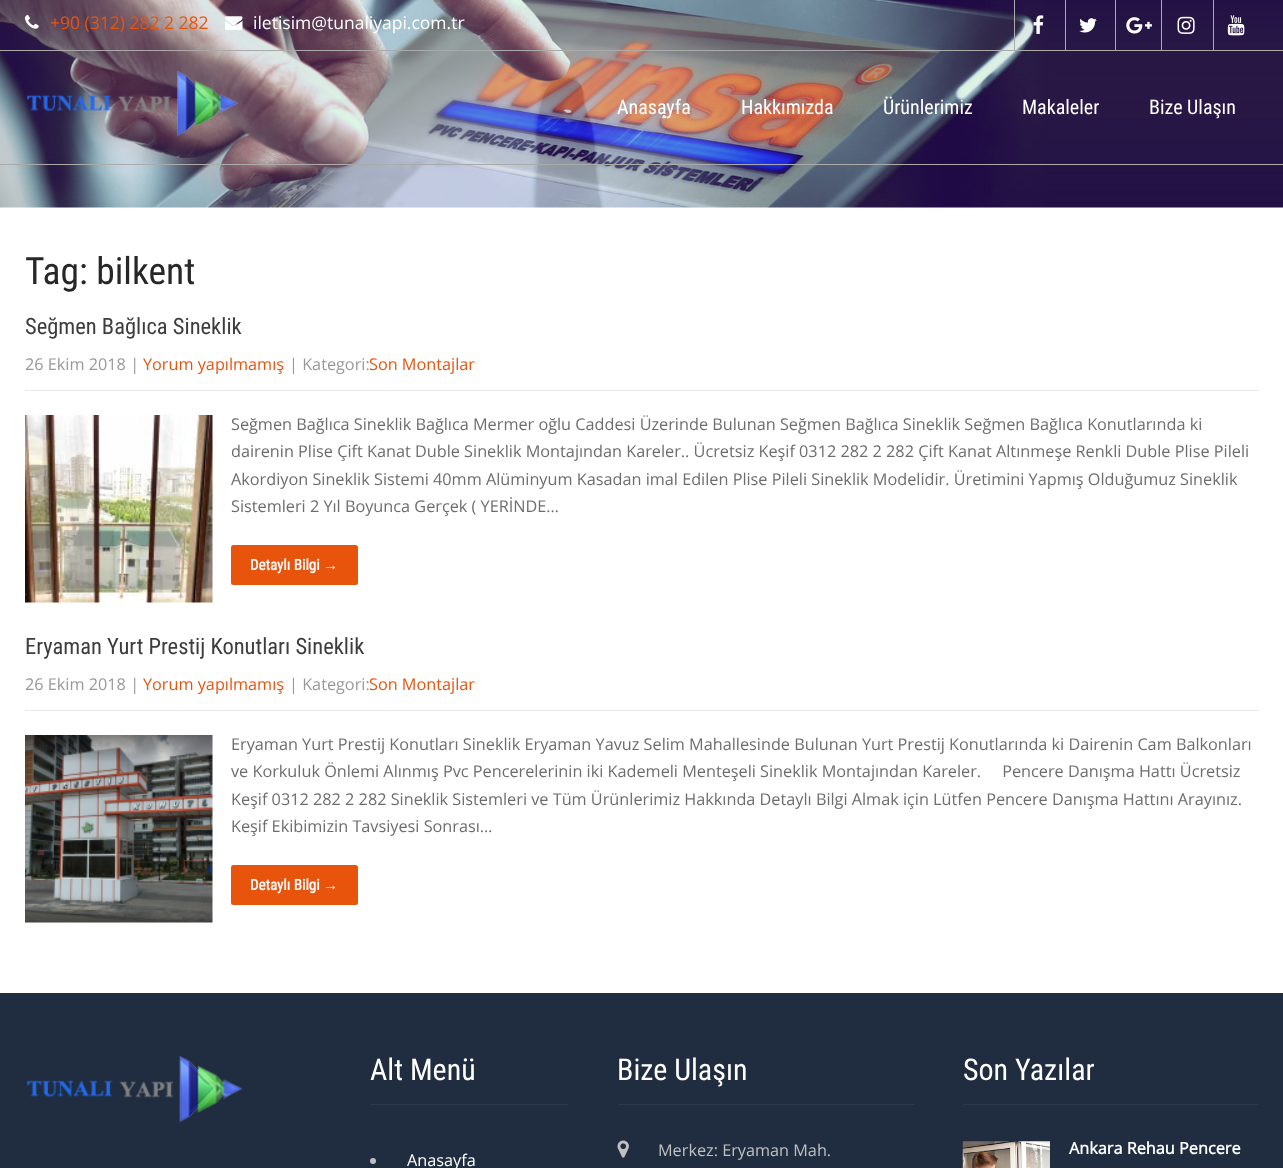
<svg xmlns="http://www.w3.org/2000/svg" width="1283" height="1168">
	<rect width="100%" height="100%" fill="#FFFFFF" />
	<image x="0" y="0" width="1283" height="208" href="assets/img1.png" />
	<rect x="0" y="164" width="1283" height="1" fill="#AAAAAA" />
	<rect x="0" y="50" width="1283" height="1" fill="#AAAAAA" />
	<image x="25" y="15" width="14" height="14" href="assets/img2.png" />
	<text x="50" y="29" font-family="Open Sans" font-size="17.5" fill="#E9540D">+90 (312) 282 2 282</text>
	<image x="225" y="16" width="18" height="14" href="assets/img3.png" />
	<text x="253" y="29" font-family="Open Sans" font-size="17.5" fill="#FFFFFF">iletisim@tunaliyapi.com.tr</text>
	<rect x="1014" y="0" width="1" height="50" fill="#AAAAAA" />
	<image x="1033" y="15" width="11" height="19" href="assets/img4.png" />
	<rect x="1065" y="0" width="1" height="50" fill="#AAAAAA" />
	<image x="1079" y="18" width="18" height="15" href="assets/img5.png" />
	<rect x="1115" y="0" width="1" height="50" fill="#AAAAAA" />
	<image x="1126" y="17" width="26" height="17" href="assets/img6.png" />
	<rect x="1161" y="0" width="1" height="50" fill="#AAAAAA" />
	<image x="1177" y="16" width="18" height="18" href="assets/img7.png" />
	<rect x="1213" y="0" width="1" height="50" fill="#AAAAAA" />
	<image x="1227" y="15" width="18" height="21" href="assets/img8.png" />
	<image x="27" y="71" width="212" height="66" href="assets/img9.png" />
	<g font-family="Roboto Condensed" font-size="20" fill="#FFFFFF">
		<text x="617" y="114">Anasayfa</text>
		<text x="741" y="114">Hakkımızda</text>
		<text x="883" y="114">Ürünlerimiz</text>
		<text x="1022" y="114">Makaleler</text>
		<text x="1149" y="114">Bize Ulaşın</text>
	</g>
	<text x="25" y="284" font-family="Roboto Condensed" font-size="37.5" fill="#272727">Tag: bilkent</text>
	<text x="25" y="334" font-family="Roboto Condensed" font-size="22.5" fill="#3D3D3D">Seğmen Bağlıca Sineklik</text>
	<rect x="25" y="390" width="1234" height="1" fill="#E8E8E8" />
	<text x="25" y="370" font-family="Open Sans" font-size="16.25" fill="#999999">26 Ekim 2018 |</text>
	<text x="143" y="370" font-family="Open Sans" font-size="16.25" fill="#E9540D">Yorum yapılmamış</text>
	<text x="289" y="370" font-family="Open Sans" font-size="16.25" fill="#999999">| Kategori:</text>
	<text x="369" y="370" font-family="Open Sans" font-size="16.25" fill="#E9540D">Son Montajlar</text>
	<image x="25" y="415" width="188" height="188" href="assets/img10.png" />
	<g font-family="Open Sans" font-size="16.25" fill="#6E6D6D">
		<text x="231" y="430">Seğmen Bağlıca Sineklik Bağlıca Mermer oğlu Caddesi Üzerinde Bulunan Seğmen Bağlıca Sineklik Seğmen Bağlıca Konutlarında ki</text>
		<text x="231" y="457">dairenin Plise Çift Kanat Duble Sineklik Montajından Kareler.. Ücretsiz Keşif 0312 282 2 282 Çift Kanat Altınmeşe Renkli Duble Plise Pileli</text>
		<text x="231" y="485">Akordiyon Sineklik Sistemi 40mm Alüminyum Kasadan imal Edilen Plise Pileli Sineklik Modelidir. Üretimini Yapmış Olduğumuz Sineklik</text>
		<text x="231" y="512">Sistemleri 2 Yıl Boyunca Gerçek ( YERİNDE…</text>
	</g>
	<rect x="231" y="545" width="127" height="40" rx="2.5" fill="#E9540D" />
	<text x="250" y="570" font-family="Roboto Condensed" font-size="15" font-weight="700" fill="#FFFFFF">Detaylı Bilgi</text>
	<text x="323" y="570" font-family="Liberation Sans" font-size="15" font-weight="700" fill="#FFFFFF">→</text>
	<text x="25" y="654" font-family="Roboto Condensed" font-size="22.5" fill="#3D3D3D">Eryaman Yurt Prestij Konutları Sineklik</text>
	<rect x="25" y="710" width="1234" height="1" fill="#E8E8E8" />
	<text x="25" y="690" font-family="Open Sans" font-size="16.25" fill="#999999">26 Ekim 2018 |</text>
	<text x="143" y="690" font-family="Open Sans" font-size="16.25" fill="#E9540D">Yorum yapılmamış</text>
	<text x="289" y="690" font-family="Open Sans" font-size="16.25" fill="#999999">| Kategori:</text>
	<text x="369" y="690" font-family="Open Sans" font-size="16.25" fill="#E9540D">Son Montajlar</text>
	<image x="25" y="735" width="188" height="188" href="assets/img11.png" />
	<g font-family="Open Sans" font-size="16.25" fill="#6E6D6D">
		<text x="231" y="750">Eryaman Yurt Prestij Konutları Sineklik Eryaman Yavuz Selim Mahallesinde Bulunan Yurt Prestij Konutlarında ki Dairenin Cam Balkonları</text>
		<text x="231" y="777" xml:space="preserve">ve Korkuluk Önlemi Alınmış Pvc Pencerelerinin iki Kademeli Menteşeli Sineklik Montajından Kareler.     Pencere Danışma Hattı Ücretsiz</text>
		<text x="231" y="805">Keşif 0312 282 2 282 Sineklik Sistemleri ve Tüm Ürünlerimiz Hakkında Detaylı Bilgi Almak için Lütfen Pencere Danışma Hattını Arayınız.</text>
		<text x="231" y="832">Keşif Ekibimizin Tavsiyesi Sonrası…</text>
	</g>
	<rect x="231" y="865" width="127" height="40" rx="2.5" fill="#E9540D" />
	<text x="250" y="890" font-family="Roboto Condensed" font-size="15" font-weight="700" fill="#FFFFFF">Detaylı Bilgi</text>
	<text x="323" y="890" font-family="Liberation Sans" font-size="15" font-weight="700" fill="#FFFFFF">→</text>
	<rect x="0" y="993" width="1283" height="175" fill="#202D40" />
	<image x="27" y="1056" width="215" height="67" href="assets/img12.png" />
	<rect x="370" y="1104" width="198" height="1" fill="#2B3A4F" />
	<text x="370" y="1080" font-family="Roboto Condensed" font-size="30" fill="#FFFFFF">Alt Menü</text>
	<circle cx="373" cy="1161" r="3" fill="#C1C0C0" />
	<text x="407" y="1166" font-family="Open Sans" font-size="16.25" fill="#FFFFFF">Anasayfa</text>
	<rect x="618" y="1104" width="296" height="1" fill="#2B3A4F" />
	<text x="617" y="1080" font-family="Roboto Condensed" font-size="30" fill="#FFFFFF">Bize Ulaşın</text>
	<image x="617" y="1140" width="12" height="18" href="assets/img13.png" />
	<text x="658" y="1156" font-family="Open Sans" font-size="16.25" fill="#C1C0C0">Merkez: Eryaman Mah.</text>
	<rect x="963" y="1104" width="296" height="1" fill="#2B3A4F" />
	<text x="963" y="1080" font-family="Roboto Condensed" font-size="30" fill="#FFFFFF">Son Yazılar</text>
	<image x="962" y="1141" width="88" height="27" href="assets/img14.png" />
	<text x="1069" y="1154" font-family="Open Sans" font-size="16.25" font-weight="700" fill="#FFFFFF">Ankara Rehau Pencere</text>
</svg>
